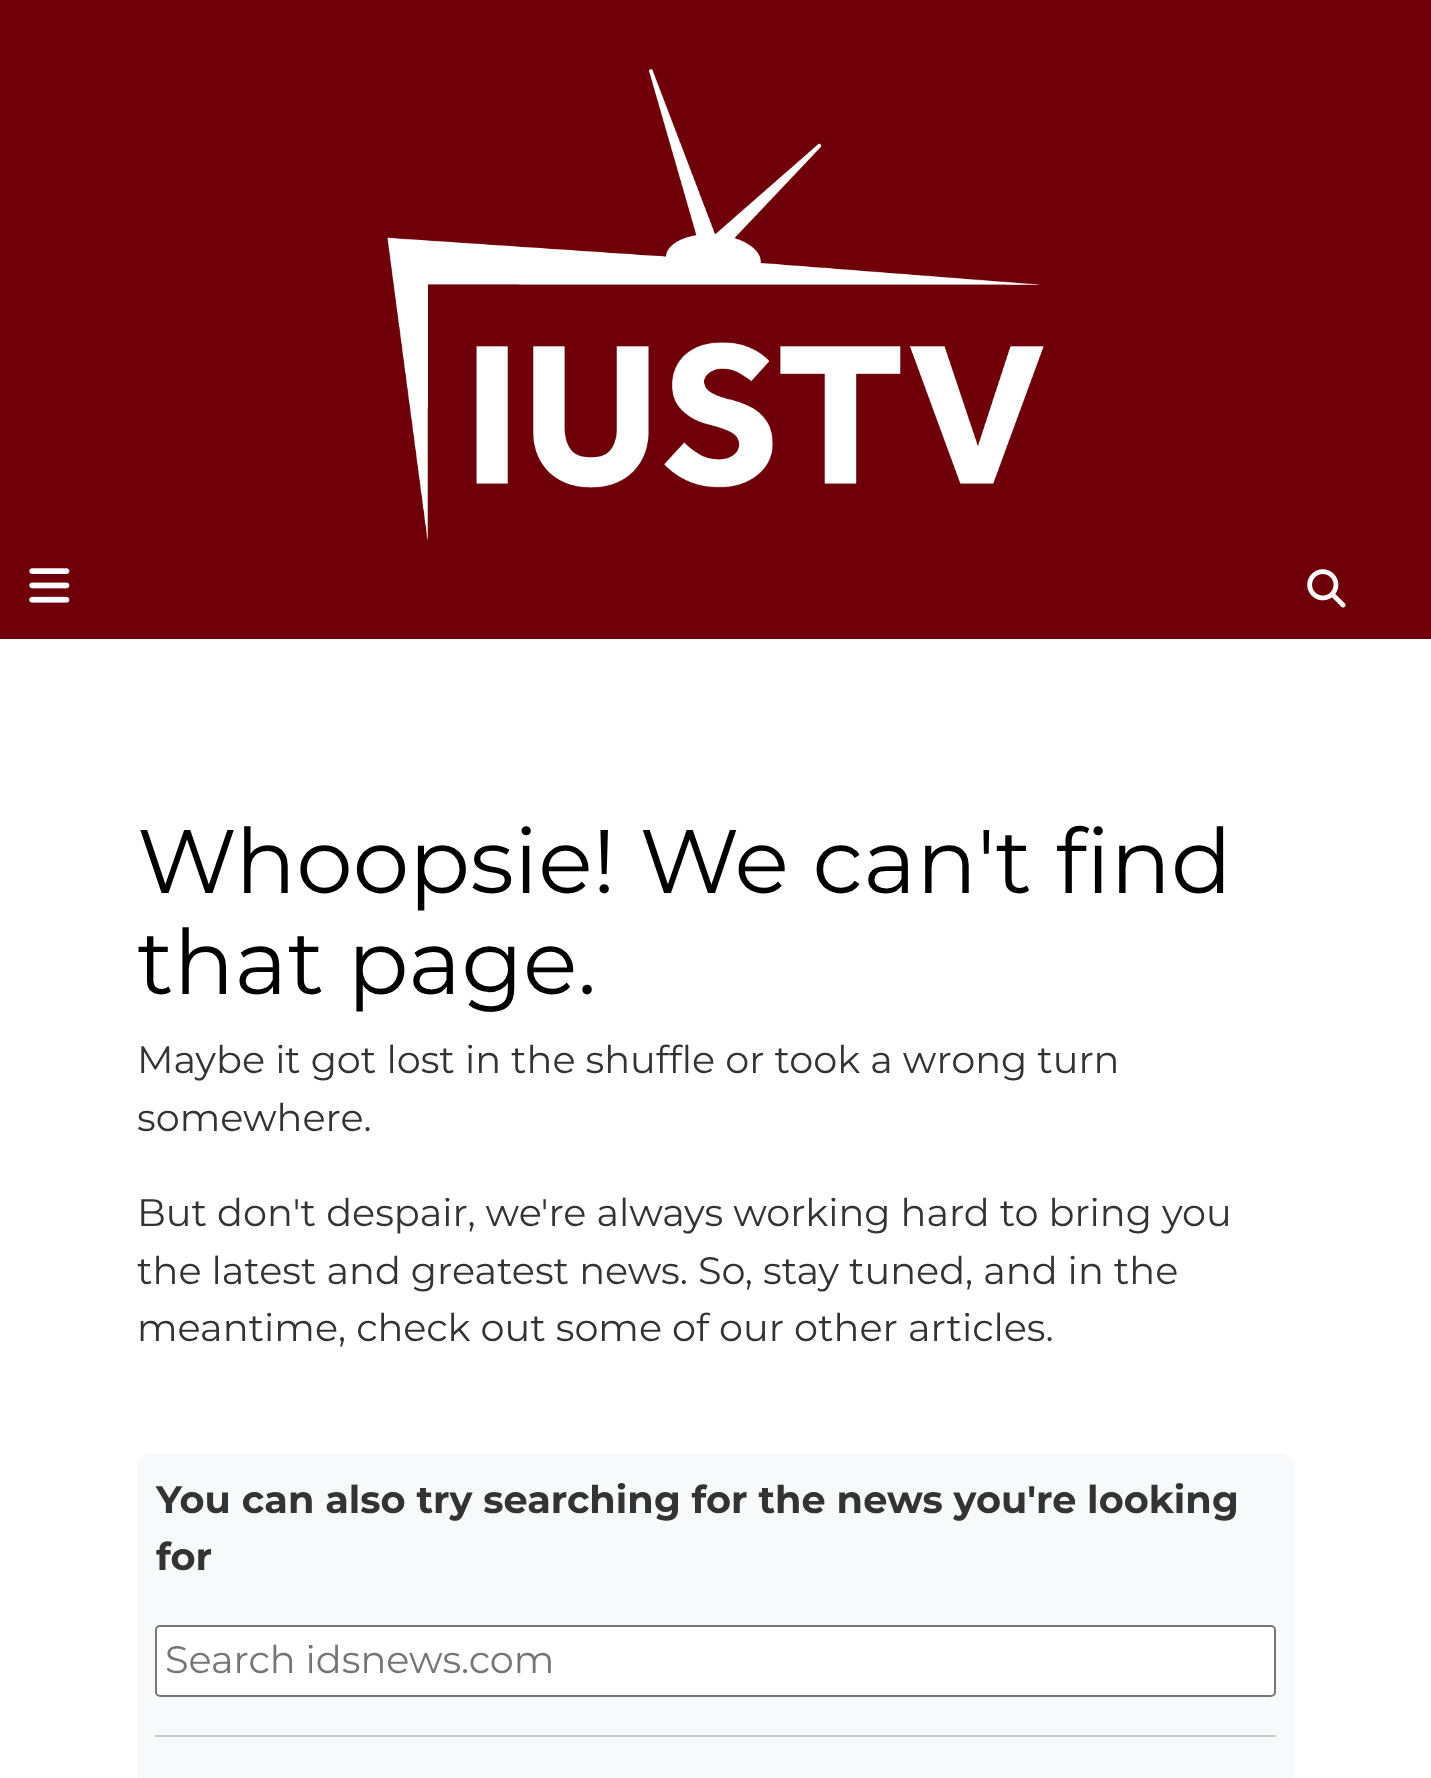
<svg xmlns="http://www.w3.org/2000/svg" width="1431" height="1778">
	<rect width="100%" height="100%" fill="#FFFFFF" />
	<rect x="0" y="0" width="1431" height="639" fill="#6F000A" />
	<image x="387" y="69" width="657" height="471" href="assets/img1.png" />
	<image x="29" y="568" width="41" height="35" href="assets/img2.png" />
	<image x="1307" y="569" width="39" height="39" href="assets/img3.png" />
	<g font-family="Montserrat" font-size="90" fill="#000000">
		<text x="137" y="893">Whoopsie! We can't find</text>
		<text x="137" y="994">that page.</text>
	</g>
	<g font-family="Montserrat" font-size="38.25" fill="#333333">
		<text x="137" y="1073">Maybe it got lost in the shuffle or took a wrong turn</text>
		<text x="137" y="1131">somewhere.</text>
		<text x="137" y="1226">But don't despair, we're always working hard to bring you</text>
		<text x="137" y="1284">the latest and greatest news. So, stay tuned, and in the</text>
		<text x="137" y="1341">meantime, check out some of our other articles.</text>
	</g>
	<rect x="137" y="1454" width="1157" height="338" rx="14" fill="#F8F9FA" />
	<g font-family="Montserrat" font-size="38.25" font-weight="700" fill="#333333">
		<text x="156" y="1513">You can also try searching for the news you're looking</text>
		<text x="156" y="1570">for</text>
	</g>
	<rect x="156" y="1626" width="1119" height="70" rx="4" fill="#FFFFFF" stroke="#767676" stroke-width="2" />
	<text x="165" y="1673" font-family="Montserrat" font-size="38.25" fill="#757575">Search idsnews.com</text>
	<rect x="155" y="1735" width="1121" height="2" fill="#C7C8C8" />
</svg>
